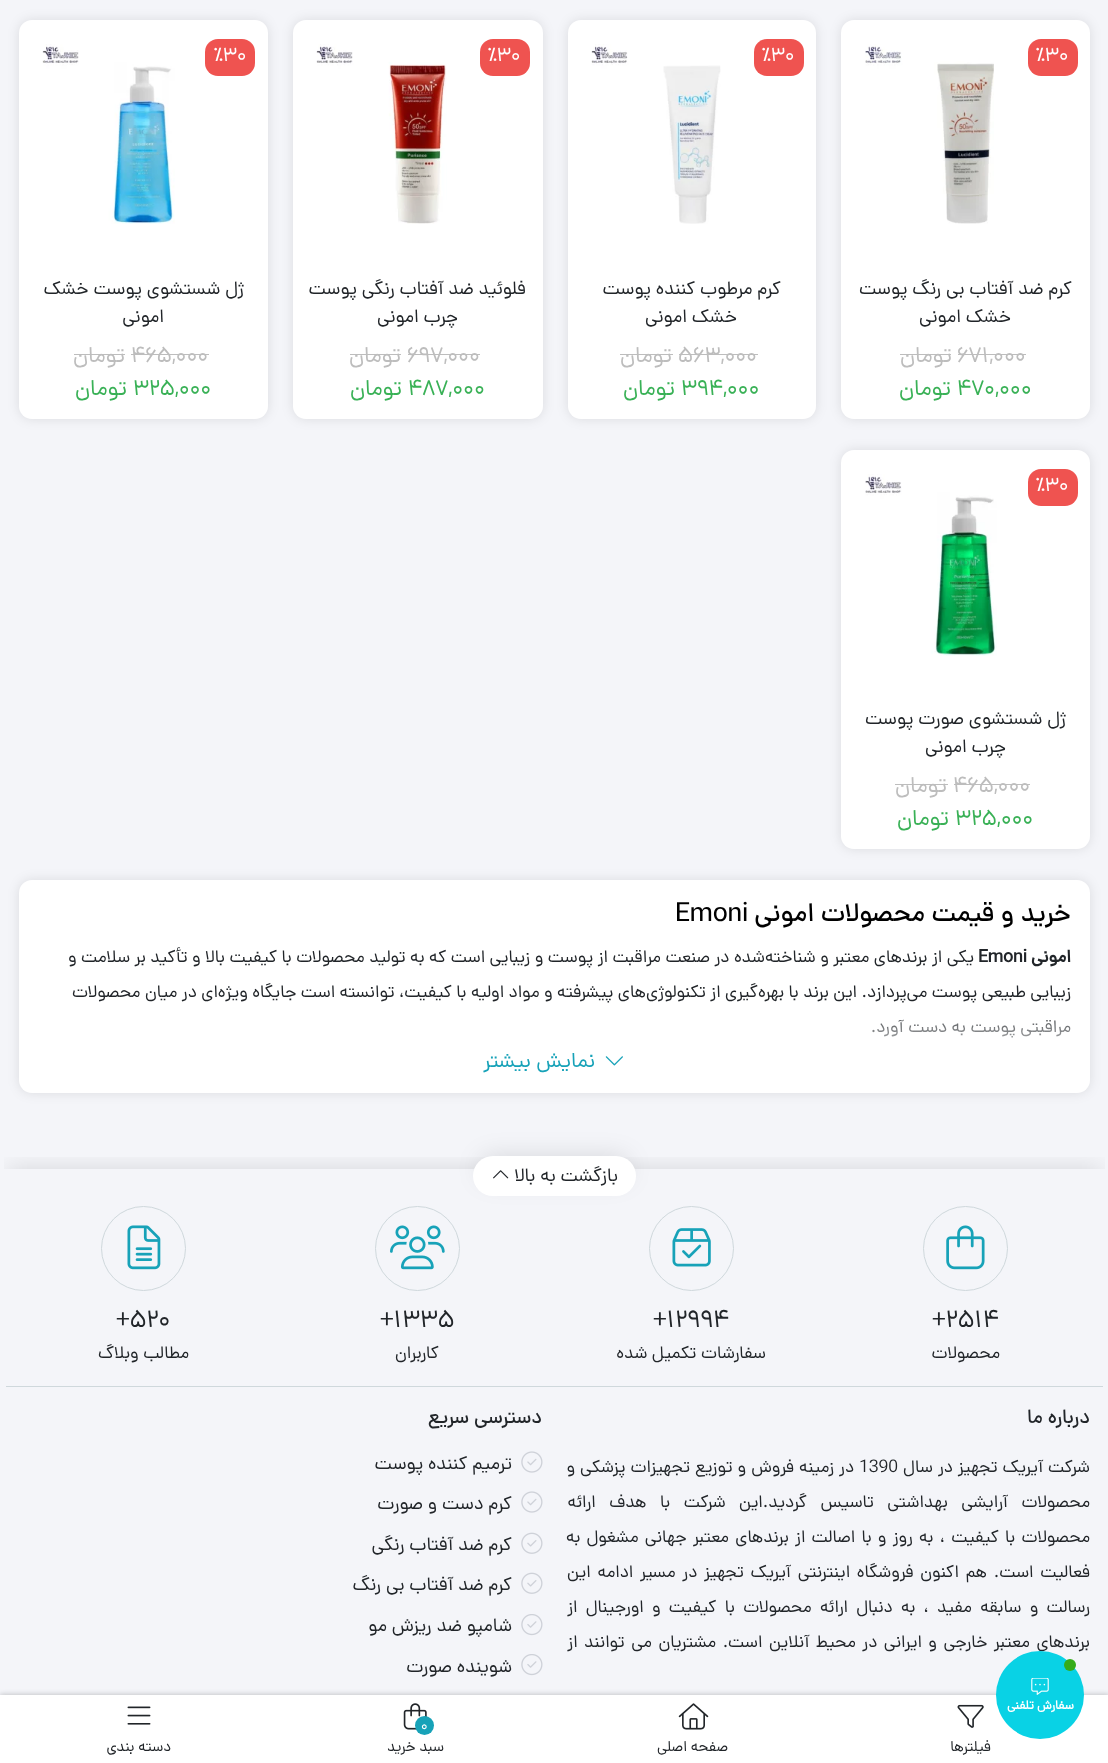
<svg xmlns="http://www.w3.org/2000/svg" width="1108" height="1763">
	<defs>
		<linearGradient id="g1" gradientUnits="userSpaceOnUse" x1="554" y1="1003" x2="554" y2="1083"><stop offset="0" stop-color="#FFFFFF" stop-opacity="0" /><stop offset="0.8" stop-color="#FFFFFF" /></linearGradient>
		<clipPath id="clip1"><rect x="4" y="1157" width="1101" height="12" /></clipPath>
	</defs>
	<rect width="100%" height="100%" fill="#F4F5F9" />
	<rect x="841" y="20" width="249" height="399" rx="13" fill="#000000" fill-opacity="0.1" filter="blur(6px)" />
	<rect x="841" y="20" width="249" height="399" rx="13" fill="#FFFFFF" />
	<rect x="1028" y="39" width="50" height="37" rx="13" fill="#EF5350" />
	<text x="1036" y="61" font-family="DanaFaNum" font-size="20" fill="#FFFFFF">٪30</text>
	<image x="865" y="44" width="129" height="180" href="assets/img1.png" />
	<g font-family="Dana" font-size="18.75" direction="rtl" fill="#212529">
		<text x="1072" y="294">کرم ضد آفتاب بی رنگ پوست</text>
		<text x="1011" y="322">خشک امونی</text>
	</g>
	<text x="957" y="362" font-family="DanaFaNum" font-size="22.5" fill="#BDBDBD">671,000</text>
	<rect x="958" y="354" width="68" height="1" fill="#BDBDBD" />
	<text x="952" y="362" font-family="DanaFaNum" font-size="22.5" direction="rtl" fill="#BDBDBD">تومان</text>
	<rect x="900" y="354" width="51" height="1" fill="#BDBDBD" />
	<text x="957" y="395" font-family="DanaFaNum" font-size="22.5" fill="#39B156">470,000</text>
	<text x="951" y="395" font-family="DanaFaNum" font-size="22.5" direction="rtl" fill="#39B156">تومان</text>
	<rect x="568" y="20" width="248" height="399" rx="13" fill="#000000" fill-opacity="0.1" filter="blur(6px)" />
	<rect x="568" y="20" width="248" height="399" rx="13" fill="#FFFFFF" />
	<rect x="754" y="39" width="50" height="37" rx="13" fill="#EF5350" />
	<text x="762" y="61" font-family="DanaFaNum" font-size="20" fill="#FFFFFF">٪30</text>
	<image x="591" y="44" width="130" height="180" href="assets/img2.png" />
	<g font-family="Dana" font-size="18.75" direction="rtl" fill="#212529">
		<text x="781" y="294">کرم مرطوب کننده پوست</text>
		<text x="737" y="322">خشک امونی</text>
	</g>
	<text x="678" y="362" font-family="DanaFaNum" font-size="22.5" fill="#BDBDBD">563,000</text>
	<rect x="679" y="354" width="79" height="1" fill="#BDBDBD" />
	<text x="672" y="362" font-family="DanaFaNum" font-size="22.5" direction="rtl" fill="#BDBDBD">تومان</text>
	<rect x="620" y="354" width="53" height="1" fill="#BDBDBD" />
	<text x="681" y="395" font-family="DanaFaNum" font-size="22.5" fill="#39B156">394,000</text>
	<text x="675" y="395" font-family="DanaFaNum" font-size="22.5" direction="rtl" fill="#39B156">تومان</text>
	<rect x="293" y="20" width="250" height="399" rx="13" fill="#000000" fill-opacity="0.1" filter="blur(6px)" />
	<rect x="293" y="20" width="250" height="399" rx="13" fill="#FFFFFF" />
	<rect x="480" y="39" width="50" height="37" rx="13" fill="#EF5350" />
	<text x="488" y="61" font-family="DanaFaNum" font-size="20" fill="#FFFFFF">٪30</text>
	<image x="316" y="44" width="131" height="180" href="assets/img3.png" />
	<g font-family="Dana" font-size="18.75" direction="rtl" fill="#212529">
		<text x="526" y="294">فلوئید ضد آفتاب رنگی پوست</text>
		<text x="458" y="322">چرب امونی</text>
	</g>
	<text x="407" y="362" font-family="DanaFaNum" font-size="22.5" fill="#BDBDBD">697,000</text>
	<rect x="408" y="354" width="72" height="1" fill="#BDBDBD" />
	<text x="401" y="362" font-family="DanaFaNum" font-size="22.5" direction="rtl" fill="#BDBDBD">تومان</text>
	<rect x="350" y="354" width="51" height="1" fill="#BDBDBD" />
	<text x="408" y="395" font-family="DanaFaNum" font-size="22.5" fill="#39B156">487,000</text>
	<text x="402" y="395" font-family="DanaFaNum" font-size="22.5" direction="rtl" fill="#39B156">تومان</text>
	<rect x="19" y="20" width="249" height="399" rx="13" fill="#000000" fill-opacity="0.1" filter="blur(6px)" />
	<rect x="19" y="20" width="249" height="399" rx="13" fill="#FFFFFF" />
	<rect x="205" y="39" width="50" height="37" rx="13" fill="#EF5350" />
	<text x="214" y="61" font-family="DanaFaNum" font-size="20" fill="#FFFFFF">٪30</text>
	<image x="42" y="44" width="133" height="180" href="assets/img4.png" />
	<g font-family="Dana" font-size="18.75" direction="rtl" fill="#212529">
		<text x="244" y="294">ژل شستشوی پوست خشک</text>
		<text x="164" y="322">امونی</text>
	</g>
	<text x="131" y="362" font-family="DanaFaNum" font-size="22.5" fill="#BDBDBD">465,000</text>
	<rect x="131" y="354" width="78" height="1" fill="#BDBDBD" />
	<text x="125" y="362" font-family="DanaFaNum" font-size="22.5" direction="rtl" fill="#BDBDBD">تومان</text>
	<rect x="74" y="354" width="51" height="1" fill="#BDBDBD" />
	<text x="133" y="395" font-family="DanaFaNum" font-size="22.5" fill="#39B156">325,000</text>
	<text x="127" y="395" font-family="DanaFaNum" font-size="22.5" direction="rtl" fill="#39B156">تومان</text>
	<rect x="841" y="450" width="249" height="399" rx="13" fill="#000000" fill-opacity="0.1" filter="blur(6px)" />
	<rect x="841" y="450" width="249" height="399" rx="13" fill="#FFFFFF" />
	<rect x="1028" y="469" width="50" height="37" rx="13" fill="#EF5350" />
	<text x="1036" y="491" font-family="DanaFaNum" font-size="20" fill="#FFFFFF">٪30</text>
	<image x="865" y="474" width="132" height="182" href="assets/img5.png" />
	<g font-family="Dana" font-size="18.75" direction="rtl" fill="#212529">
		<text x="1066" y="724">ژل شستشوی صورت پوست</text>
		<text x="1006" y="752">چرب امونی</text>
	</g>
	<text x="953" y="792" font-family="DanaFaNum" font-size="22.5" fill="#BDBDBD">465,000</text>
	<rect x="954" y="784" width="76" height="1" fill="#BDBDBD" />
	<text x="947" y="792" font-family="DanaFaNum" font-size="22.5" direction="rtl" fill="#BDBDBD">تومان</text>
	<rect x="895" y="784" width="53" height="1" fill="#BDBDBD" />
	<text x="955" y="825" font-family="DanaFaNum" font-size="22.5" fill="#39B156">325,000</text>
	<text x="949" y="825" font-family="DanaFaNum" font-size="22.5" direction="rtl" fill="#39B156">تومان</text>
	<rect x="19" y="880" width="1071" height="213" rx="13" fill="#000000" fill-opacity="0.1" filter="blur(6px)" />
	<rect x="19" y="880" width="1071" height="213" rx="13" fill="#FFFFFF" />
	<text x="1071" y="921" font-family="Dana" font-size="26.25" font-weight="500" direction="rtl" fill="#000000">خرید و قیمت محصولات امونی</text>
	<text x="675" y="921" font-family="Dana" font-size="26.25" font-weight="500" fill="#000000">Emoni</text>
	<text x="1071" y="962" font-family="Dana" font-size="17.5" font-weight="700" direction="rtl" fill="#212529">امونی</text>
	<text x="978" y="962" font-family="Dana" font-size="17.5" font-weight="700" fill="#212529">Emoni</text>
	<g font-family="Dana" font-size="17.5" direction="rtl" fill="#212529">
		<text x="974" y="962">یکی از برندهای معتبر و شناخته‌شده در صنعت مراقبت از پوست و زیبایی است که به تولید محصولات با کیفیت بالا و تأکید بر سلامت و</text>
		<text x="1071" y="997">زیبایی طبیعی پوست می‌پردازد. این برند با بهره‌گیری از تکنولوژی‌های پیشرفته و مواد اولیه با کیفیت، توانسته است جایگاه ویژه‌ای در میان محصولات</text>
		<text x="1071" y="1032">مراقبتی پوست به دست آورد.</text>
	</g>
	<rect x="872" y="1019" width="199" height="19" fill="url(#g1)" />
	<image x="605" y="1056" width="18" height="10" href="assets/img6.png" />
	<text x="595" y="1067" font-family="Dana" font-size="21.25" direction="rtl" fill="#17A2B8">نمایش بیشتر</text>
	<g clip-path="url(#clip1)">
		<rect x="8" y="1169" width="1093" height="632" fill="#000000" fill-opacity="0.12" filter="blur(12.5px)" />
	</g>
	<rect x="480" y="1156" width="149" height="25" rx="12.5" fill="#000000" fill-opacity="0.12" filter="blur(12.5px)" />
	<rect x="473" y="1156" width="163" height="40" rx="20" fill="#FFFFFF" />
	<text x="618" y="1181" font-family="Dana" font-size="18.75" direction="rtl" fill="#212529">بازگشت به بالا</text>
	<image x="493" y="1170" width="16" height="9" href="assets/img7.png" />
	<rect x="6" y="1386" width="1097" height="1" fill="#CFD8DC" />
	<circle cx="965.5" cy="1248.5" r="42" fill="none" stroke="#CFD8DC" />
	<image x="946" y="1225" width="39" height="45" href="assets/img8.png" />
	<text x="932" y="1327" font-family="DanaFaNum" font-size="25" fill="#212529">+2514</text>
	<text x="1000" y="1358" font-family="Dana" font-size="17.5" direction="rtl" fill="#212529">محصولات</text>
	<circle cx="691.5" cy="1248.5" r="42" fill="none" stroke="#CFD8DC" />
	<image x="672" y="1228" width="39" height="39" href="assets/img9.png" />
	<text x="653" y="1327" font-family="DanaFaNum" font-size="25" fill="#212529">+12994</text>
	<text x="766" y="1358" font-family="Dana" font-size="17.5" direction="rtl" fill="#212529">سفارشات تکمیل شده</text>
	<circle cx="417.5" cy="1248.5" r="42" fill="none" stroke="#CFD8DC" />
	<image x="390" y="1225" width="55" height="45" href="assets/img10.png" />
	<text x="380" y="1327" font-family="DanaFaNum" font-size="25" fill="#212529">+1335</text>
	<text x="439" y="1358" font-family="Dana" font-size="17.5" direction="rtl" fill="#212529">کاربران</text>
	<circle cx="143.5" cy="1248.5" r="42" fill="none" stroke="#CFD8DC" />
	<image x="127" y="1225" width="34" height="45" href="assets/img11.png" />
	<text x="116" y="1327" font-family="DanaFaNum" font-size="25" fill="#212529">+520</text>
	<text x="189" y="1358" font-family="Dana" font-size="17.5" direction="rtl" fill="#212529">مطالب وبلاگ</text>
	<text x="1090" y="1423" font-family="Dana" font-size="20" font-weight="500" direction="rtl" fill="#212529">درباره ما</text>
	<text x="1090" y="1472" word-spacing="0.5" font-family="Dana" font-size="17.5" direction="rtl" fill="#212529">شرکت آیریک تجهیز در سال</text>
	<text x="859" y="1472" font-family="Dana" font-size="17.5" fill="#212529">1390</text>
	<g font-family="Dana" font-size="17.5" direction="rtl" fill="#212529">
		<text x="854" y="1472" word-spacing="0.5">در زمینه فروش و توزیع تجهیزات پزشکی و</text>
		<text x="1090" y="1507" word-spacing="9">محصولات آرایشی بهداشتی تاسیس گردید.این شرکت با هدف ارائه</text>
		<text x="1090" y="1542" word-spacing="1.75">محصولات با کيفيت ، به روز و با اصالت از برندهای معتبر جهانی مشغول به</text>
		<text x="1090" y="1577" word-spacing="2.25">فعاليت است. هم اکنون فروشگاه اینترنتی آیریک تجهیز در مسیر ادامه اين</text>
		<text x="1090" y="1612" word-spacing="3.75">رسالت و سابقه مفید ، به دنبال ارائه محصولات با کيفيت و اورجينال از</text>
		<text x="1090" y="1647" word-spacing="2">برندهای معتبر خارجی و ايرانی در محيط آنلاين است. مشتريان می توانند از</text>
	</g>
	<text x="542" y="1423" font-family="Dana" font-size="20" font-weight="500" direction="rtl" fill="#212529">دسترسی سریع</text>
	<image x="521" y="1451" width="22" height="22" href="assets/img12.png" />
	<text x="512" y="1469" font-family="Dana" font-size="18.75" direction="rtl" fill="#212529">ترمیم کننده پوست</text>
	<image x="521" y="1491" width="22" height="22" href="assets/img12.png" />
	<text x="512" y="1509" font-family="Dana" font-size="18.75" direction="rtl" fill="#212529">کرم دست و صورت</text>
	<image x="521" y="1532" width="22" height="22" href="assets/img13.png" />
	<text x="512" y="1550" font-family="Dana" font-size="18.75" direction="rtl" fill="#212529">کرم ضد آفتاب رنگی</text>
	<image x="521" y="1572" width="22" height="22" href="assets/img13.png" />
	<text x="512" y="1590" font-family="Dana" font-size="18.75" direction="rtl" fill="#212529">کرم ضد آفتاب بی رنگ</text>
	<image x="521" y="1614" width="22" height="22" href="assets/img14.png" />
	<text x="512" y="1631" font-family="Dana" font-size="18.75" direction="rtl" fill="#212529">شامپو ضد ریزش مو</text>
	<image x="521" y="1654" width="22" height="22" href="assets/img14.png" />
	<text x="512" y="1672" font-family="Dana" font-size="18.75" direction="rtl" fill="#212529">شوینده صورت</text>
	<rect x="0" y="1694" width="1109" height="69" fill="#000000" fill-opacity="0.19" filter="blur(2.5px)" />
	<rect x="0" y="1695" width="1108" height="68" fill="#FFFFFF" />
	<circle cx="1040" cy="1695" r="44" fill="#09D2E5" />
	<circle cx="1070" cy="1665" r="6" fill="#35AC19" />
	<image x="1031" y="1678" width="18" height="17" href="assets/img15.png" />
	<text x="1074" y="1709" font-family="'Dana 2'" font-size="12.5" font-weight="700" direction="rtl" fill="#FFFFFF">سفارش تلفنی</text>
	<image x="957" y="1704" width="27" height="24" href="assets/img16.png" />
	<text x="991" y="1751" font-family="Dana" font-size="15" direction="rtl" fill="#212529">فیلترها</text>
	<image x="678" y="1703" width="31" height="27" href="assets/img17.png" />
	<text x="728" y="1751" font-family="Dana" font-size="15" direction="rtl" fill="#212529">صفحه اصلی</text>
	<image x="403" y="1703" width="24" height="27" href="assets/img18.png" />
	<circle cx="424.5" cy="1725.5" r="9.5" fill="#17A2B8" />
	<text x="421" y="1730" font-family="DanaFaNum" font-size="14" fill="#FFFFFF">0</text>
	<text x="444" y="1751" font-family="Dana" font-size="15" direction="rtl" fill="#212529">سبد خرید</text>
	<image x="127" y="1706" width="24" height="19" href="assets/img19.png" />
	<text x="171" y="1751" font-family="Dana" font-size="15" direction="rtl" fill="#212529">دسته بندی</text>
</svg>
